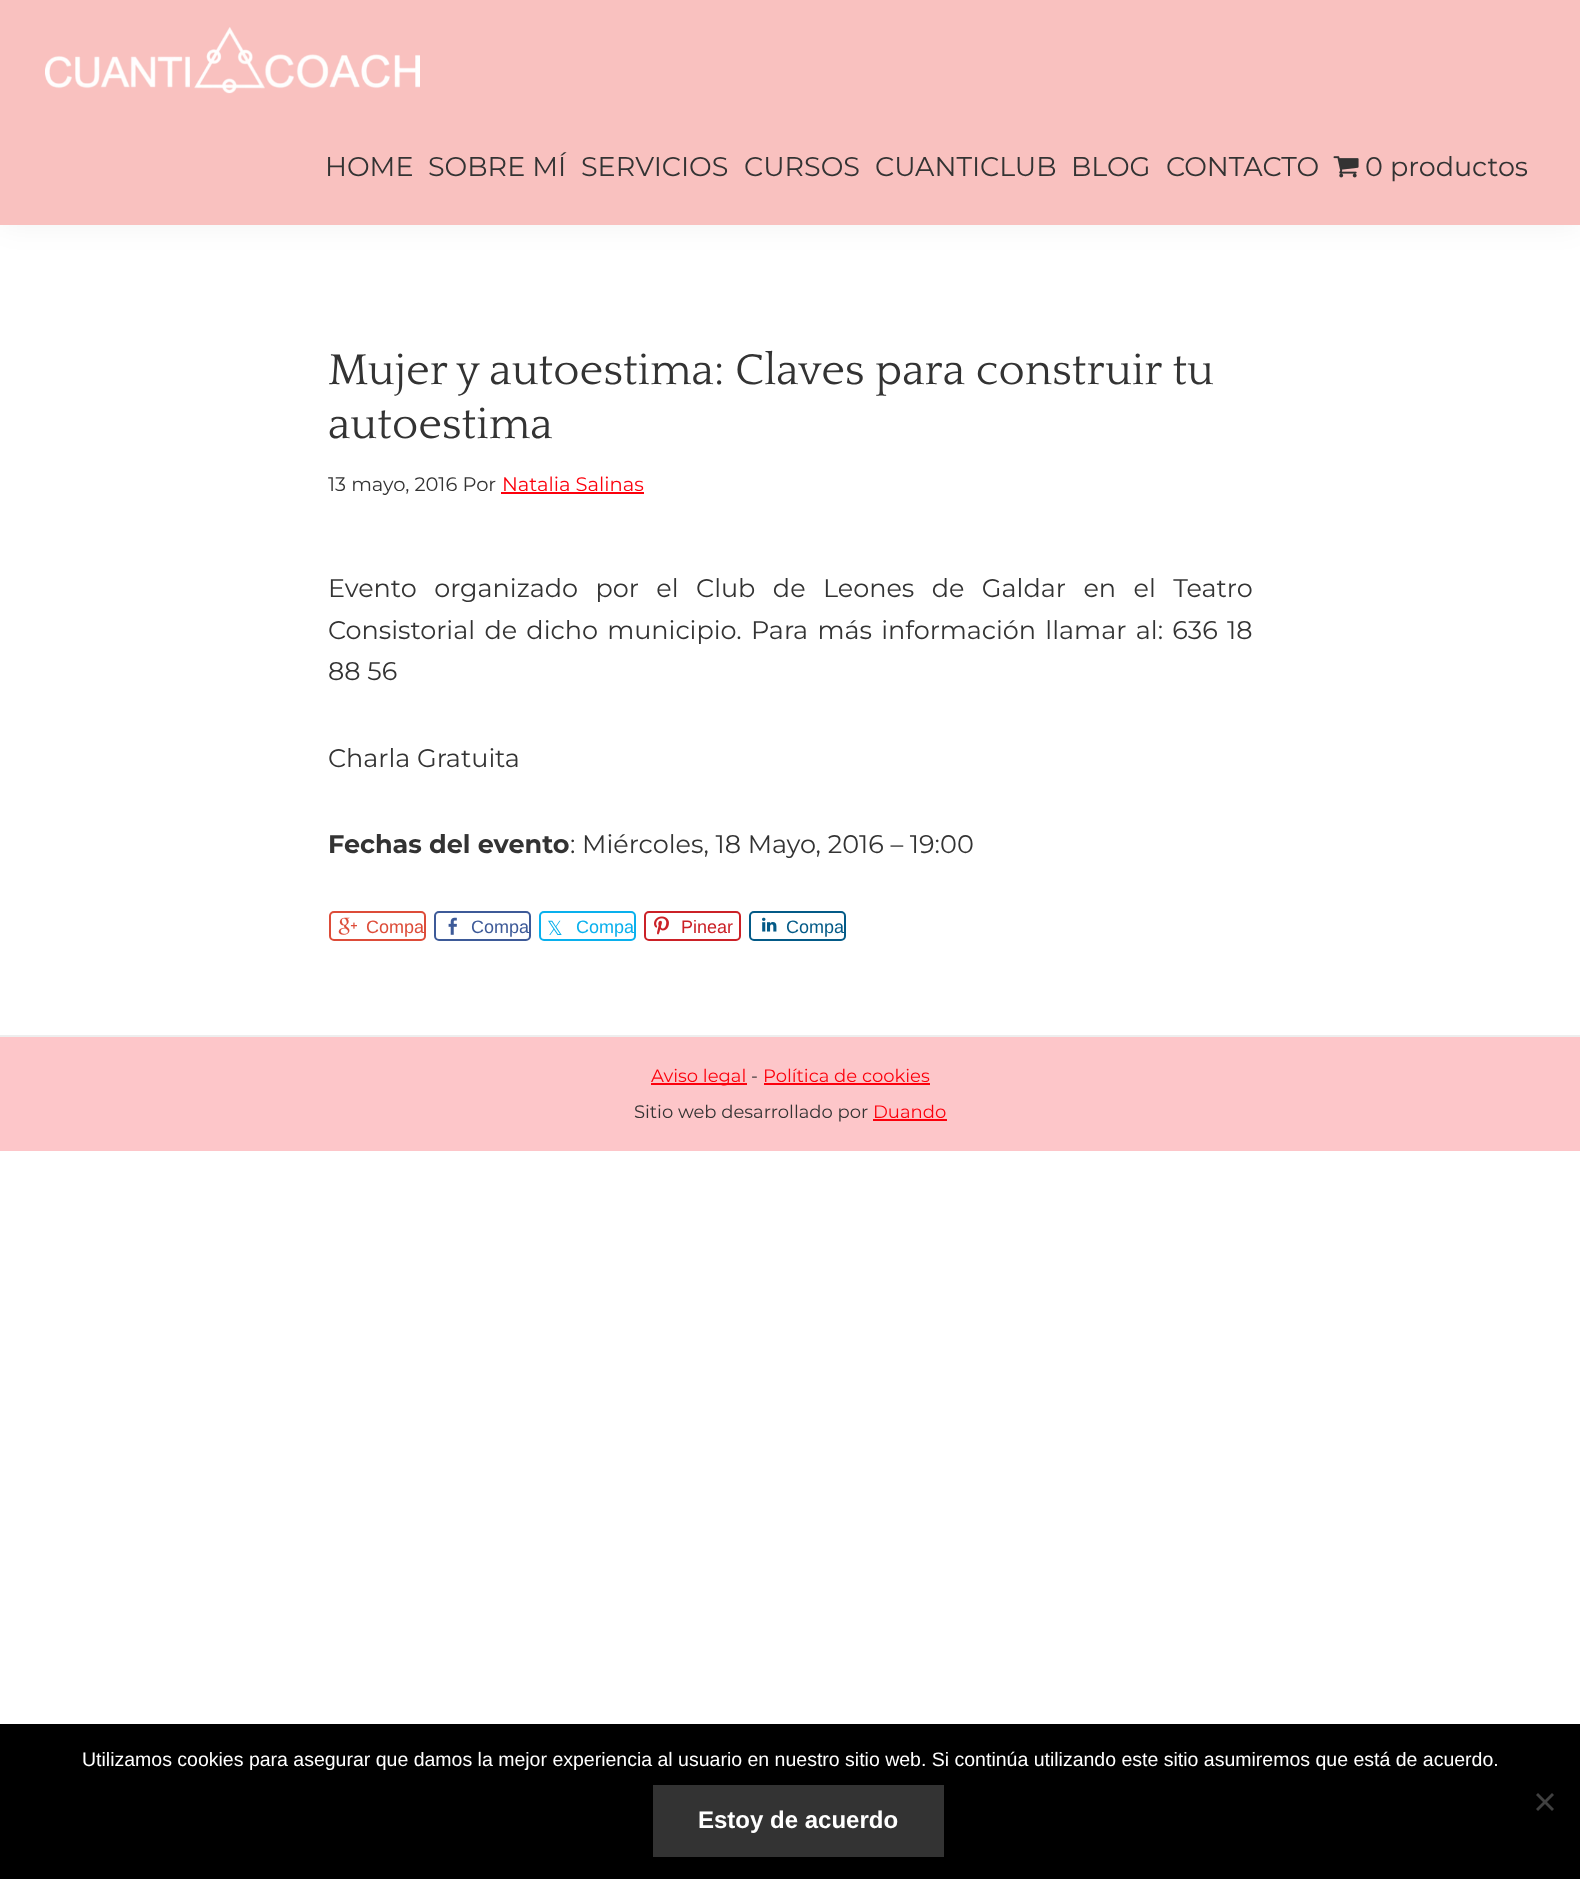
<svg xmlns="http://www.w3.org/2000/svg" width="1580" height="1879">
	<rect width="100%" height="100%" fill="#FFFFFF" />
	<rect x="0" y="0" width="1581" height="225" fill="#000000" fill-opacity="0.05" filter="blur(15px)" />
	<rect x="0" y="0" width="1580" height="225" fill="#F9C1BF" />
	<image x="45" y="27" width="375" height="67" href="assets/img1.png" />
	<g font-family="Montserrat" font-size="27" fill="#333333">
		<text x="325" y="176">HOME</text>
		<text x="428" y="176">SOBRE MÍ</text>
		<text x="581" y="176">SERVICIOS</text>
		<text x="744" y="176">CURSOS</text>
		<text x="875" y="176">CUANTICLUB</text>
		<text x="1071" y="176">BLOG</text>
		<text x="1166" y="176">CONTACTO</text>
	</g>
	<image x="1333" y="156" width="26" height="22" href="assets/img2.png" />
	<text x="1365" y="176" font-family="Montserrat" font-size="27" fill="#333333">0 productos</text>
	<g font-family="Quattrocento" font-size="45" fill="#333333">
		<text x="328" y="384">Mujer y autoestima: Claves para construir tu</text>
		<text x="328" y="438">autoestima</text>
	</g>
	<text x="328" y="491" font-family="Montserrat" font-size="19.5" fill="#333333">13 mayo, 2016 Por</text>
	<text x="502" y="491" font-family="Montserrat" font-size="19.5" fill="#FC000C">Natalia Salinas</text>
	<rect x="501" y="492" width="143" height="2" fill="#FC000C" />
	<g font-family="Montserrat" font-size="25.5" fill="#333333">
		<text x="328" y="597" word-spacing="10.75">Evento organizado por el Club de Leones de Galdar en el Teatro</text>
		<text x="328" y="639" word-spacing="2.6">Consistorial de dicho municipio. Para más información llamar al: 636 18</text>
		<text x="328" y="680">88 56</text>
		<text x="328" y="767">Charla Gratuita</text>
	</g>
	<text x="328" y="853" font-family="Montserrat" font-size="25.5" font-weight="700" fill="#333333">Fechas del evento</text>
	<text x="570" y="853" font-family="Montserrat" font-size="25.5" fill="#333333">: Miércoles, 18 Mayo, 2016 – 19:00</text>
	<rect x="330" y="912" width="95" height="28" rx="4" fill="none" stroke="#DD4C39" stroke-width="2" />
	<image x="338" y="917" width="19" height="18" href="assets/img3.png" />
	<text x="366" y="933" font-family="Liberation Sans" font-size="18" fill="#DD4C39">Compa</text>
	<rect x="435" y="912" width="95" height="28" rx="4" fill="none" stroke="#3D5A98" stroke-width="2" />
	<image x="448" y="917" width="9" height="18" href="assets/img4.png" />
	<text x="471" y="933" font-family="Liberation Sans" font-size="18" fill="#3D5A98">Compa</text>
	<rect x="540" y="912" width="95" height="28" rx="4" fill="none" stroke="#09B0ED" stroke-width="2" />
	<text x="547" y="935" font-family="DejaVu Sans" font-size="19.5" fill="#09B0ED">𝕏</text>
	<text x="576" y="933" font-family="Liberation Sans" font-size="18" fill="#09B0ED">Compa</text>
	<rect x="645" y="912" width="95" height="28" rx="4" fill="none" stroke="#CB2127" stroke-width="2" />
	<image x="654" y="916" width="15" height="19" href="assets/img5.png" />
	<text x="681" y="933" font-family="Liberation Sans" font-size="18" fill="#CB2127">Pinear</text>
	<rect x="750" y="912" width="95" height="28" rx="4" fill="none" stroke="#035A87" stroke-width="2" />
	<image x="762" y="917" width="15" height="15" href="assets/img6.png" />
	<text x="786" y="933" font-family="Liberation Sans" font-size="18" fill="#035A87">Compa</text>
	<rect x="0" y="1037" width="1580" height="114" fill="#FDC6C9" />
	<rect x="0" y="1035" width="1580" height="2" fill="#EEEEEE" />
	<rect x="651" y="1083" width="96" height="2" fill="#FC000C" />
	<text x="651" y="1082" font-family="Montserrat" font-size="18" fill="#FC000C">Aviso legal</text>
	<text x="751" y="1082" font-family="Montserrat" font-size="18" fill="#333333">-</text>
	<text x="763" y="1082" font-family="Montserrat" font-size="18" fill="#FC000C">Política de cookies</text>
	<rect x="764" y="1083" width="166" height="2" fill="#FC000C" />
	<text x="634" y="1118" font-family="Montserrat" font-size="18" fill="#333333">Sitio web desarrollado por</text>
	<text x="873" y="1118" font-family="Montserrat" font-size="18" fill="#FC000C">Duando</text>
	<rect x="873" y="1119" width="74" height="2" fill="#FC000C" />
	<rect x="0" y="1724" width="1580" height="155" fill="#000000" />
	<text x="82" y="1766" font-family="Liberation Sans" font-size="19.5" fill="#FFFFFF">Utilizamos cookies para asegurar que damos la mejor experiencia al usuario en nuestro sitio web. Si continúa utilizando este sitio asumiremos que está de acuerdo.</text>
	<path d="M1552 1793L1554 1795L1538 1811L1536 1809Z" fill="#404040" />
	<path d="M1536 1795L1538 1793L1554 1809L1552 1811Z" fill="#404040" />
	<rect x="653" y="1785" width="291" height="72" fill="#333333" />
	<text x="698" y="1828" font-family="Liberation Sans" font-size="24" font-weight="700" fill="#FFFFFF">Estoy de acuerdo</text>
</svg>
